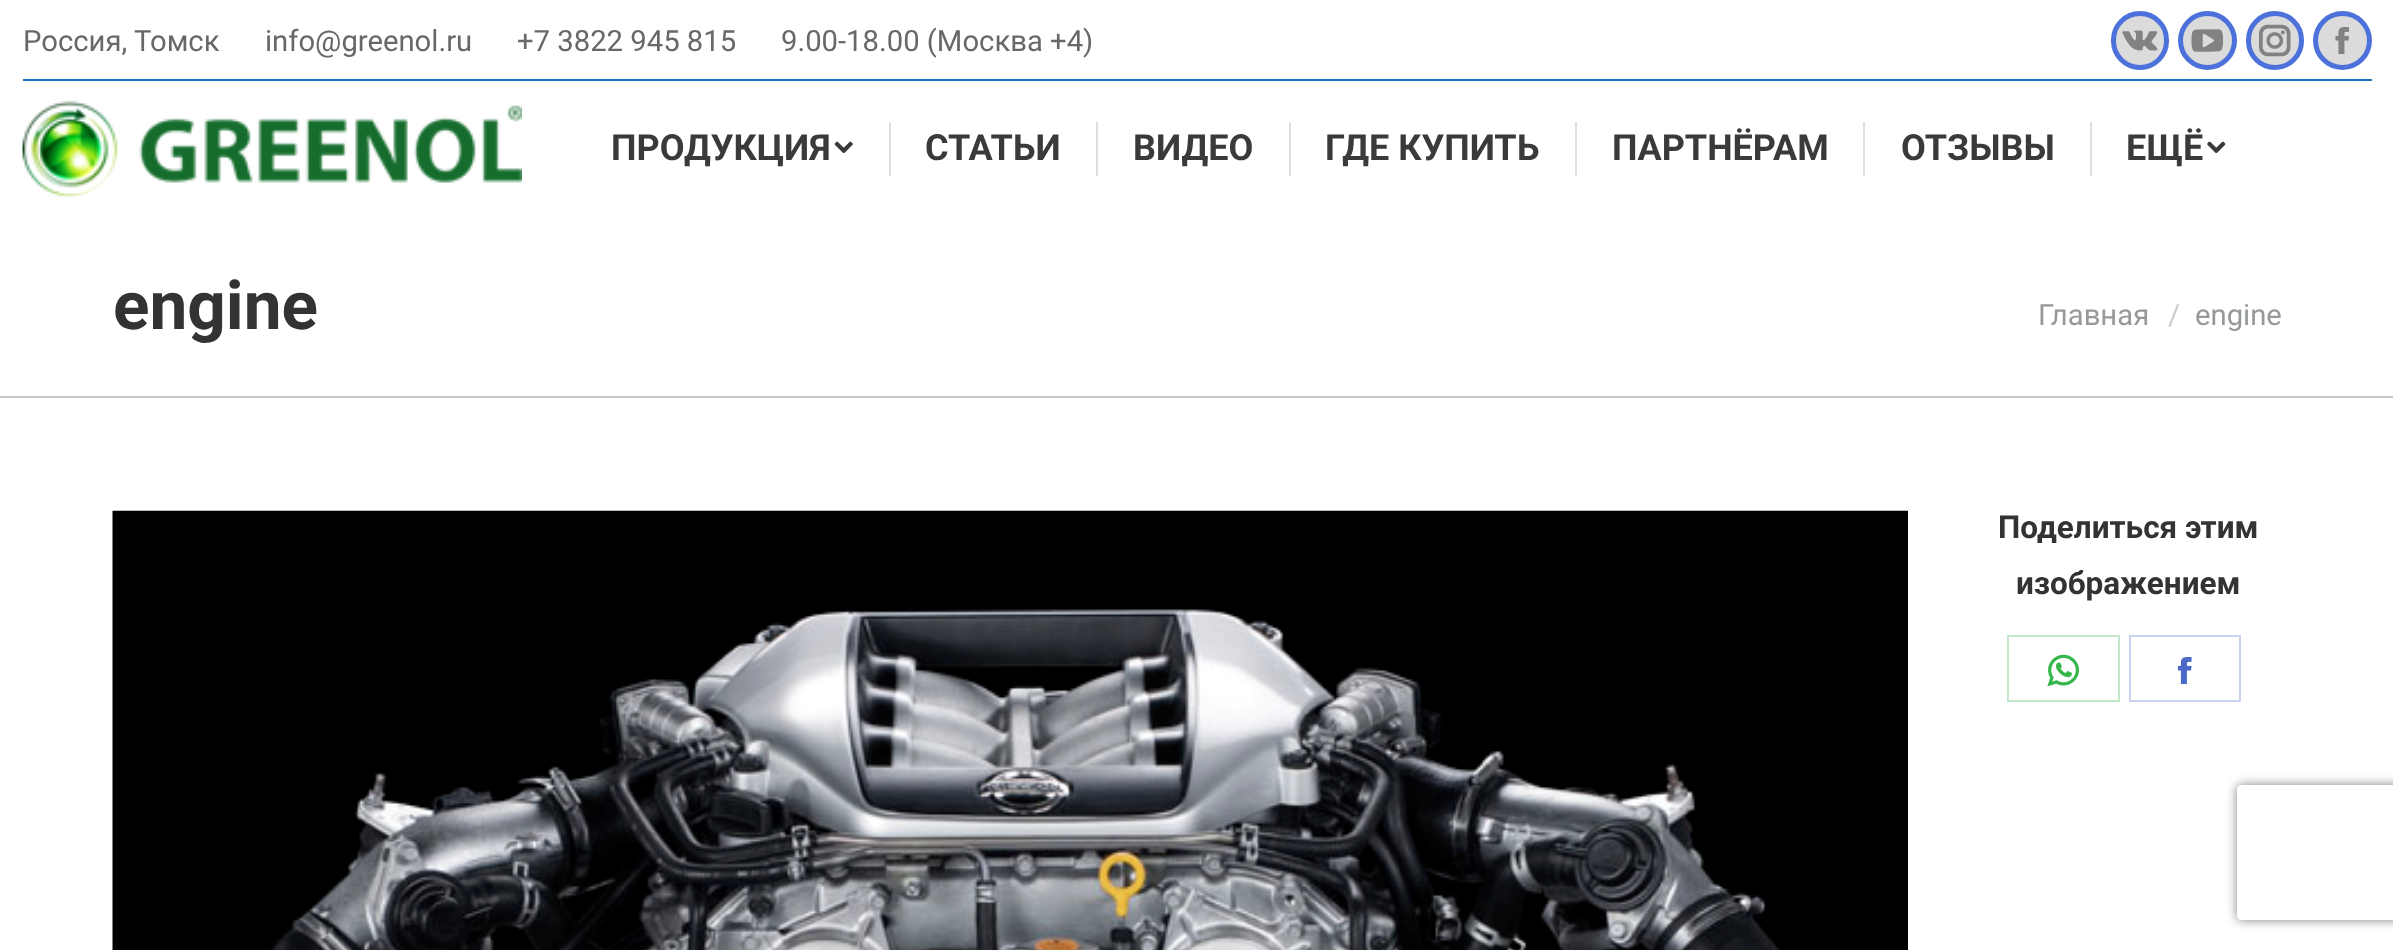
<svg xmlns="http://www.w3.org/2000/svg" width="2393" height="950">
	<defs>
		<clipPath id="clip1"><path d="M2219 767H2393V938H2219ZM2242 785H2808C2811 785 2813 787 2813 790V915C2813 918 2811 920 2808 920H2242C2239 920 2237 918 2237 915V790C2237 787 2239 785 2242 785Z" clip-rule="evenodd" /></clipPath>
	</defs>
	<rect width="100%" height="100%" fill="#FFFFFF" />
	<g font-family="Roboto" font-size="29.25" fill="#686868">
		<text x="23" y="51">Россия, Томск</text>
		<text x="265" y="51">info@greenol.ru</text>
		<text x="517" y="51">+7 3822 945 815</text>
		<text x="781" y="51">9.00-18.00 (Москва +4)</text>
	</g>
	<rect x="2113.5" y="13.5" width="53" height="54" rx="26.5" fill="#DBDBDB" stroke="#4D71DA" stroke-width="5" />
	<image x="2122" y="30" width="36" height="21" href="assets/img1.png" />
	<circle cx="2207.5" cy="40.5" r="27" fill="#DBDBDB" stroke="#4D71DA" stroke-width="5" />
	<image x="2191" y="29" width="32" height="23" href="assets/img2.png" />
	<rect x="2248.5" y="13.5" width="53" height="54" rx="26.5" fill="#DBDBDB" stroke="#4D71DA" stroke-width="5" />
	<image x="2259" y="24" width="32" height="33" href="assets/img3.png" />
	<circle cx="2342.5" cy="40.5" r="27" fill="#DBDBDB" stroke="#4D71DA" stroke-width="5" />
	<image x="2335" y="27" width="14" height="27" href="assets/img4.png" />
	<rect x="23" y="79" width="2349" height="2" fill="#1E73BE" />
	<image x="22" y="100" width="500" height="98" href="assets/img5.png" />
	<text x="611" y="160" font-family="Roboto" font-size="36" font-weight="700" fill="#3A3A3A">ПРОДУКЦИЯ</text>
	<image x="834" y="141" width="19" height="12" href="assets/img6.png" />
	<rect x="889" y="122" width="2" height="54" fill="#DEDEDE" />
	<text x="925" y="160" font-family="Roboto" font-size="36" font-weight="700" fill="#3A3A3A">СТАТЬИ</text>
	<rect x="1096" y="122" width="2" height="54" fill="#DEDEDE" />
	<text x="1133" y="160" font-family="Roboto" font-size="36" font-weight="700" fill="#3A3A3A">ВИДЕО</text>
	<rect x="1289" y="122" width="2" height="54" fill="#DEDEDE" />
	<text x="1325" y="160" font-family="Roboto" font-size="36" font-weight="700" fill="#3A3A3A">ГДЕ КУПИТЬ</text>
	<rect x="1575" y="122" width="2" height="54" fill="#DEDEDE" />
	<text x="1612" y="160" font-family="Roboto" font-size="36" font-weight="700" fill="#3A3A3A">ПАРТНЁРАМ</text>
	<rect x="1863" y="122" width="2" height="54" fill="#DEDEDE" />
	<text x="1901" y="160" font-family="Roboto" font-size="36" font-weight="700" fill="#3A3A3A">ОТЗЫВЫ</text>
	<rect x="2090" y="122" width="2" height="54" fill="#DEDEDE" />
	<text x="2126" y="160" font-family="Roboto" font-size="36" font-weight="700" fill="#3A3A3A">ЕЩЁ</text>
	<image x="2207" y="141" width="19" height="12" href="assets/img7.png" />
	<rect x="0" y="396" width="2393" height="2" fill="#C9C9C9" />
	<text x="113" y="329" font-family="Roboto" font-size="67.5" font-weight="700" fill="#333333">engine</text>
	<text x="2038" y="325" font-family="Roboto" font-size="29.25" fill="#95999B">Главная</text>
	<text x="2168" y="325" font-family="Roboto" font-size="29.25" fill="#CACCCD">/</text>
	<text x="2195" y="325" font-family="Roboto" font-size="29.25" fill="#95999B">engine</text>
	<image x="112" y="510" width="1796" height="440" href="assets/img8.png" />
	<g font-family="Roboto" font-size="31.5" font-weight="700" fill="#333333">
		<text x="1998" y="538">Поделиться этим</text>
		<text x="2016" y="594">изображением</text>
	</g>
	<rect x="2008" y="636" width="111" height="65" fill="none" stroke="#C3E9CA" stroke-width="2" />
	<image x="2047" y="654" width="32" height="33" href="assets/img9.png" />
	<rect x="2130" y="636" width="110" height="65" fill="none" stroke="#C9D2EE" stroke-width="2" />
	<image x="2177" y="657" width="15" height="27" href="assets/img10.png" />
	<g clip-path="url(#clip1)">
		<rect x="2237" y="785" width="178" height="135" rx="5" fill="#808080" filter="blur(5.5px)" />
	</g>
</svg>
